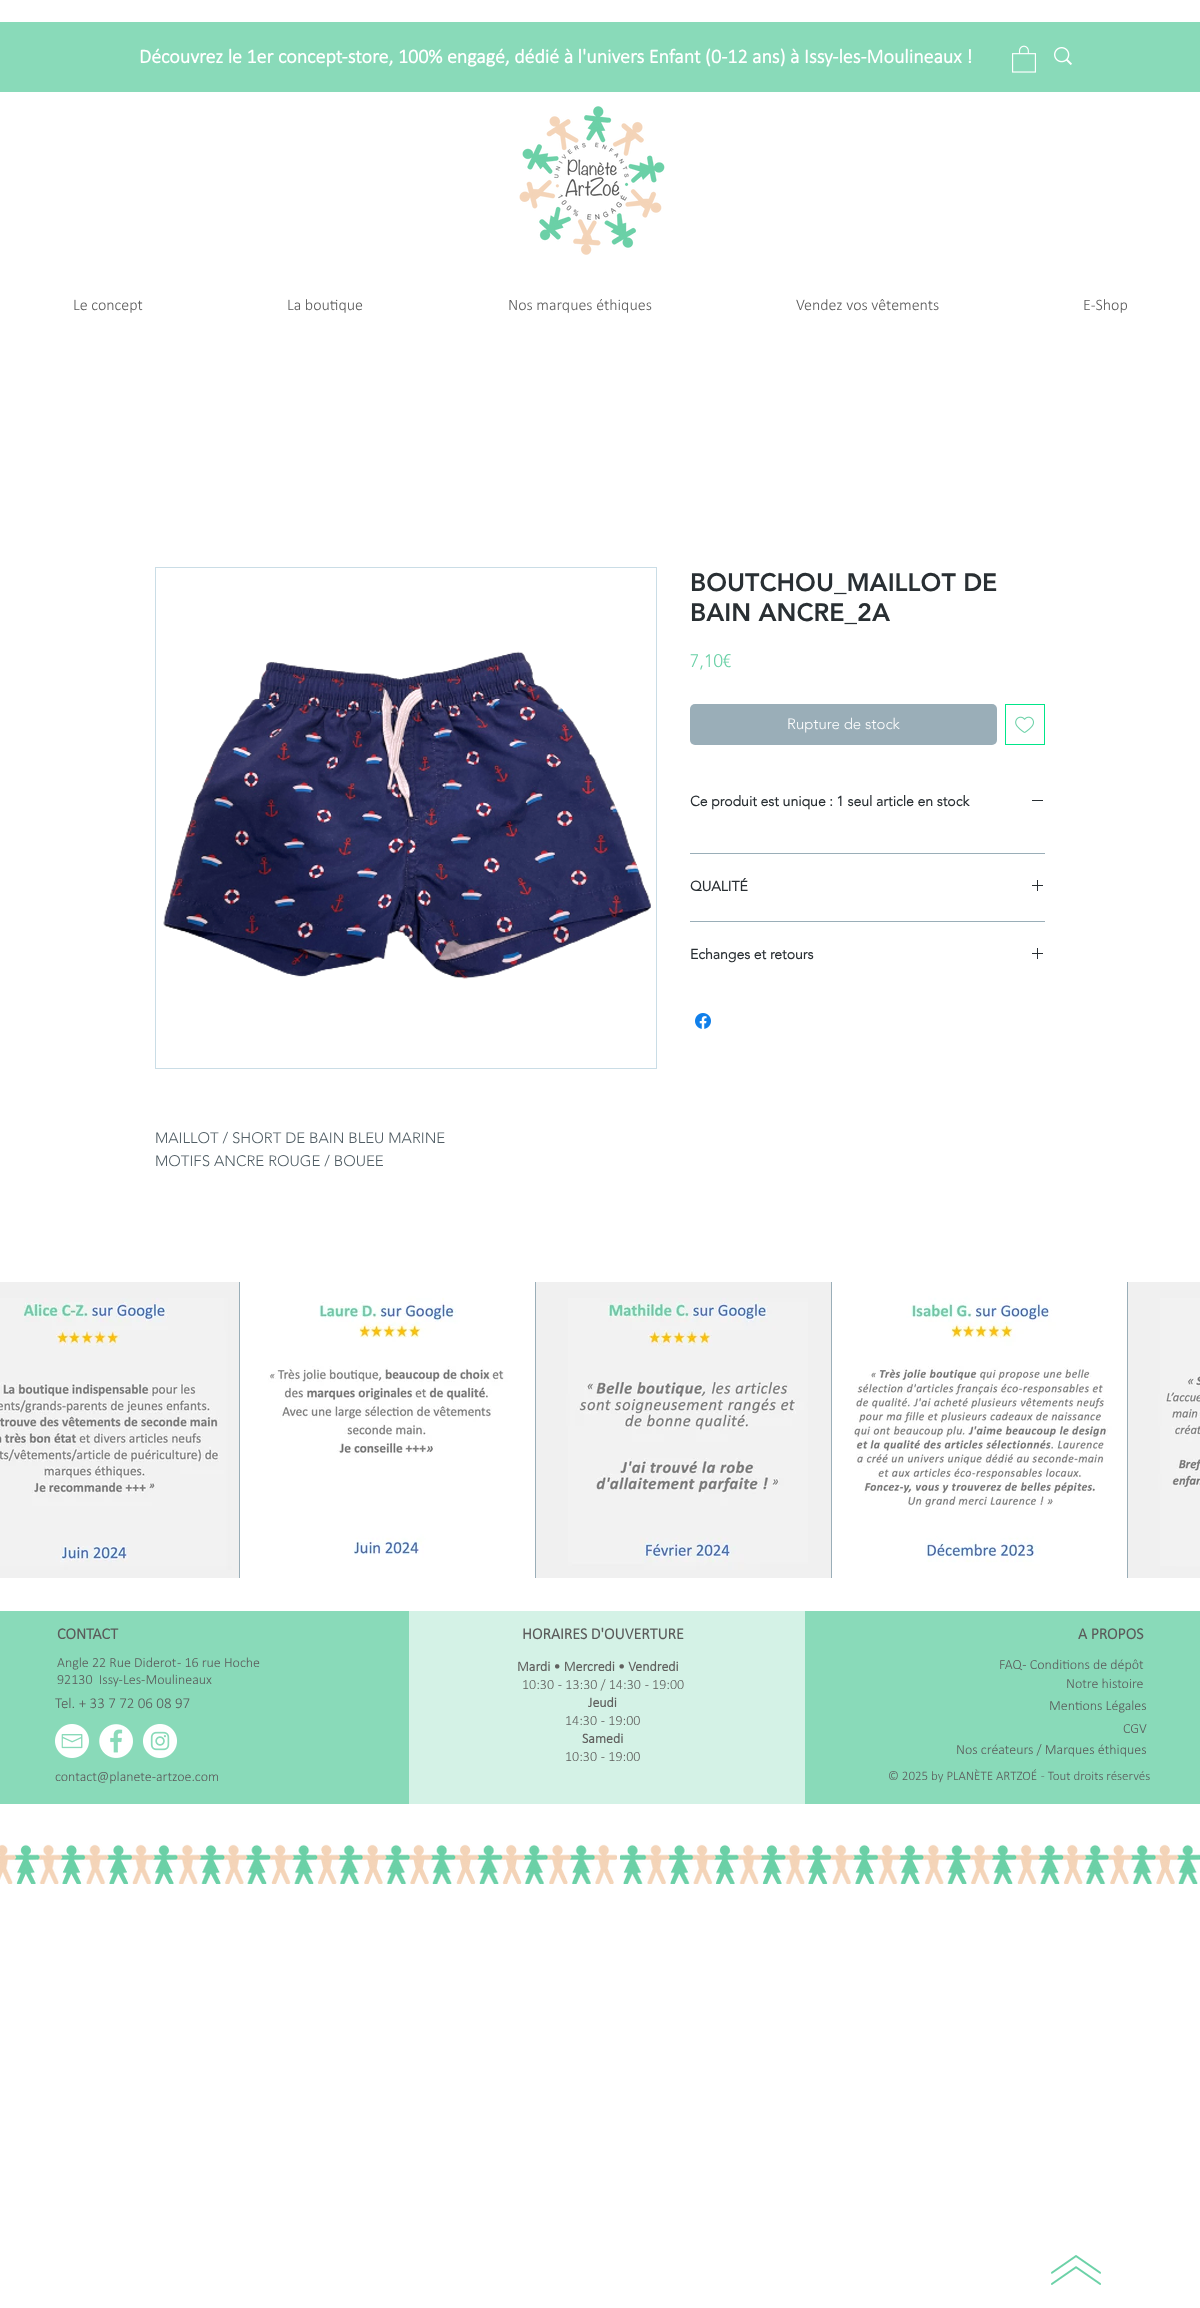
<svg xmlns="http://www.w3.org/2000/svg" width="1200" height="2308">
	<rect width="100%" height="100%" fill="#FFFFFF" />
	<rect x="0" y="22" width="1200" height="70" fill="#89DAB9" />
	<text x="139" y="63" font-family="Calibri" font-size="20" font-weight="700" fill="#FFFFFF">Découvrez le 1er concept-store, 100% engagé, dédié à l'univers Enfant (0-12 ans) à Issy-les-Moulineaux !</text>
	<image x="1012" y="45" width="24" height="28" href="assets/img1.png" />
	<image x="1054" y="47" width="18" height="18" href="assets/img2.png" />
	<image x="519" y="106" width="146" height="149" href="assets/img3.png" />
	<g font-family="Calibri" font-size="16" font-weight="300" fill="#5B5B5B">
		<text x="73" y="310">Le concept</text>
		<text x="287" y="310">La boutique</text>
		<text x="508" y="310">Nos marques éthiques</text>
		<text x="796" y="310">Vendez vos vêtements</text>
		<text x="1083" y="310">E-Shop</text>
	</g>
	<g font-family="'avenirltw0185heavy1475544'" font-size="25" font-weight="900" fill="#292F33">
		<text x="690" y="591">BOUTCHOU_MAILLOT DE</text>
		<text x="690" y="621">BAIN ANCRE_2A</text>
	</g>
	<text x="690" y="667" font-family="'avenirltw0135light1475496'" font-size="18" font-weight="300" fill="#6BD1A7">7,10€</text>
	<rect x="690" y="704" width="307" height="41" rx="5" fill="#9AAEB8" />
	<text x="787" y="729" font-family="'avenirltw0135light1475496'" font-size="15" font-weight="300" fill="#FFFFFF">Rupture de stock</text>
	<rect x="1005.5" y="704.5" width="39" height="40" fill="none" stroke="#00E689" />
	<image x="1015" y="716" width="19" height="17" href="assets/img4.png" />
	<rect x="690" y="853" width="355" height="1" fill="#9AAEB8" />
	<text x="690" y="806" font-family="'avenirltw0135light1475496'" font-size="14" font-weight="700" fill="#292F33">Ce produit est unique : 1 seul article en stock</text>
	<rect x="1032" y="800" width="11" height="1" fill="#292F33" />
	<rect x="690" y="921" width="355" height="1" fill="#9AAEB8" />
	<text x="690" y="891" font-family="'avenirltw0135light1475496'" font-size="14" font-weight="700" fill="#292F33">QUALITÉ</text>
	<image x="1032" y="880" width="11" height="11" href="assets/img5.png" />
	<text x="690" y="959" font-family="'avenirltw0135light1475496'" font-size="14" font-weight="700" fill="#292F33">Echanges et retours</text>
	<image x="1032" y="948" width="11" height="11" href="assets/img5.png" />
	<image x="695" y="1013" width="16" height="16" href="assets/img6.png" />
	<rect x="155.5" y="567.5" width="501" height="501" fill="none" stroke="#CADDE6" />
	<image x="163" y="651" width="488" height="328" href="assets/img7.png" />
	<g font-family="'avenirltw0135light1475496'" font-size="15" font-weight="300" fill="#515E65">
		<text x="155" y="1143">MAILLOT / SHORT DE BAIN BLEU MARINE</text>
		<text x="155" y="1166">MOTIFS ANCRE ROUGE / BOUEE</text>
	</g>
	<image x="0" y="1282" width="239" height="296" href="assets/img8.png" />
	<rect x="239" y="1282" width="1" height="296" fill="#9AAEB8" />
	<image x="240" y="1282" width="295" height="296" href="assets/img9.png" />
	<rect x="535" y="1282" width="1" height="296" fill="#9AAEB8" />
	<image x="536" y="1282" width="295" height="296" href="assets/img10.png" />
	<rect x="831" y="1282" width="1" height="296" fill="#9AAEB8" />
	<image x="832" y="1282" width="295" height="296" href="assets/img11.png" />
	<rect x="1127" y="1282" width="1" height="296" fill="#9AAEB8" />
	<image x="1128" y="1282" width="72" height="296" href="assets/img12.png" />
	<rect x="0" y="1611" width="409" height="193" fill="#89DAB9" />
	<text x="57" y="1639" font-family="Calibri" font-size="16" font-weight="700" fill="#5B5B5B">CONTACT</text>
	<g font-family="Calibri" font-size="14" font-weight="300" fill="#5B5B5B">
		<text x="57" y="1667">Angle 22 Rue Diderot - 16 rue Hoche</text>
		<text x="57" y="1684" xml:space="preserve">92130  Issy-Les-Moulineaux</text>
	</g>
	<text x="55" y="1708" font-family="Calibri" font-size="15" font-weight="300" fill="#5B5B5B">Tel. + 33 7 72 06 08 97</text>
	<image x="55" y="1724" width="34" height="34" href="assets/img13.png" />
	<image x="99" y="1724" width="34" height="34" href="assets/img14.png" />
	<image x="143" y="1724" width="34" height="34" href="assets/img15.png" />
	<text x="55" y="1781" font-family="Calibri" font-size="14" font-weight="300" fill="#5B5B5B">contact@planete-artzoe.com</text>
	<rect x="409" y="1611" width="396" height="193" fill="#D4F2E6" />
	<text x="522" y="1639" font-family="Calibri" font-size="16" font-weight="700" fill="#5B5B5B">HORAIRES D'OUVERTURE</text>
	<text x="517" y="1671" font-family="Calibri" font-size="14" font-weight="700" fill="#61615F">Mardi • Mercredi • Vendredi</text>
	<text x="522" y="1689" font-family="Calibri" font-size="14" font-weight="300" fill="#61615F" xml:space="preserve">10:30  - 13:30 / 14:30  - 19:00</text>
	<text x="588" y="1707" font-family="Calibri" font-size="14" font-weight="700" fill="#61615F">Jeudi</text>
	<text x="565" y="1725" font-family="Calibri" font-size="14" font-weight="300" fill="#61615F" xml:space="preserve">14:30  - 19:00</text>
	<text x="582" y="1743" font-family="Calibri" font-size="14" font-weight="700" fill="#61615F">Samedi</text>
	<text x="565" y="1761" font-family="Calibri" font-size="14" font-weight="300" fill="#61615F" xml:space="preserve">10:30  - 19:00</text>
	<rect x="805" y="1611" width="395" height="193" fill="#89DAB9" />
	<text x="1078" y="1639" font-family="Calibri" font-size="16" font-weight="700" fill="#5B5B5B">A PROPOS</text>
	<g font-family="Calibri" font-size="14" font-weight="300" fill="#5B5B5B">
		<text x="999" y="1669">FAQ - Conditions de dépôt</text>
		<text x="1066" y="1688">Notre histoire</text>
		<text x="1049" y="1710">Mentions Légales</text>
		<text x="1123" y="1733">CGV</text>
		<text x="956" y="1754">Nos créateurs / Marques éthiques</text>
	</g>
	<text x="888" y="1780" font-family="Calibri" font-size="13" font-weight="300" fill="#5B5B5B" xml:space="preserve">© 2025 by PLANÈTE ARTZOÉ  - Tout droits réservés</text>
	<image x="0" y="1844" width="617" height="40" href="assets/img16.png" />
	<image x="620" y="1844" width="580" height="40" href="assets/img17.png" />
	<image x="1051" y="2255" width="50" height="30" href="assets/img18.png" />
</svg>
